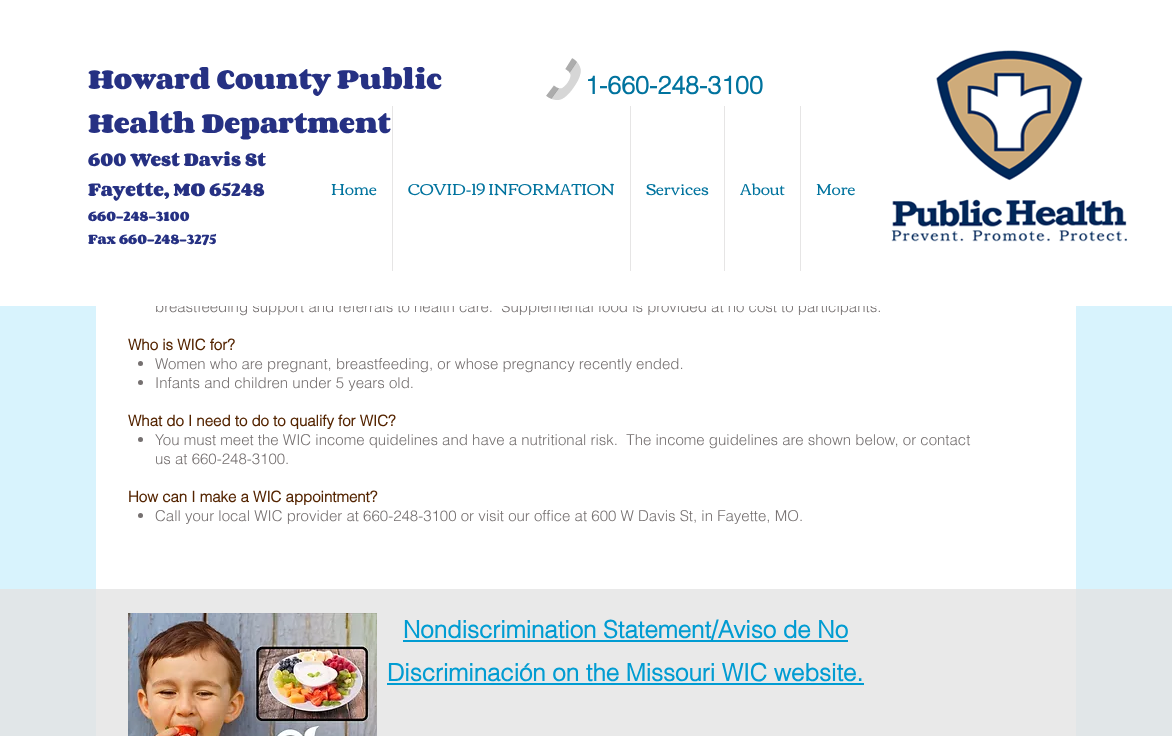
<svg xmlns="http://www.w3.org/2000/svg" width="1172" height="736">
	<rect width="100%" height="100%" fill="#D8F3FD" />
	<rect x="96" y="306" width="980" height="283" fill="#FFFFFF" />
	<text x="155" y="312" font-family="helvetica" font-size="15" font-weight="300" fill="#757070" xml:space="preserve">breastfeeding support and referrals to health care.  Supplemental food is provided at no cost to participants.</text>
	<rect x="0" y="0" width="1172" height="306" fill="#FFFFFF" />
	<g font-family="Corben" font-size="24" font-weight="700" fill="#263183">
		<text x="88" y="89">Howard County Public</text>
		<text x="88" y="133">Health Department</text>
	</g>
	<g font-family="Corben" font-size="16" font-weight="700" fill="#263183">
		<text x="88" y="166">600 West Davis St</text>
		<text x="88" y="196">Fayette, MO 65248</text>
	</g>
	<g font-family="Corben" font-size="12" font-weight="700" fill="#263183">
		<text x="88" y="221">660-248-3100</text>
		<text x="88" y="244">Fax 660-248-3275</text>
	</g>
	<image x="546" y="58" width="35" height="42" href="assets/img1.png" />
	<text x="585" y="94" font-family="helvetica" font-size="25" font-weight="700" fill="#00739E">1-660-248-3100</text>
	<image x="891" y="50" width="237" height="192" href="assets/img2.png" />
	<text x="331" y="195" font-family="Corben" font-size="16" fill="#00739E">Home</text>
	<rect x="392" y="106" width="1" height="165" fill="#E6E5E5" />
	<text x="408" y="195" font-family="Corben" font-size="16" fill="#00739E">COVID-19 INFORMATION</text>
	<rect x="630" y="106" width="1" height="165" fill="#E6E5E5" />
	<text x="646" y="195" font-family="Corben" font-size="16" fill="#00739E">Services</text>
	<rect x="724" y="106" width="1" height="165" fill="#E6E5E5" />
	<text x="740" y="195" font-family="Corben" font-size="16" fill="#00739E">About</text>
	<rect x="800" y="106" width="1" height="165" fill="#E6E5E5" />
	<text x="816" y="195" font-family="Corben" font-size="16" fill="#00739E">More</text>
	<text x="128" y="350" font-family="helvetica" font-size="15" font-weight="700" fill="#542400">Who is WIC for?</text>
	<circle cx="140.5" cy="363.5" r="2.5" fill="#757070" />
	<text x="155" y="369" font-family="helvetica" font-size="15" font-weight="300" fill="#757070">Women who are pregnant, breastfeeding, or whose pregnancy recently ended.</text>
	<circle cx="140.5" cy="382.5" r="2.5" fill="#757070" />
	<text x="155" y="388" font-family="helvetica" font-size="15" font-weight="300" fill="#757070">Infants and children under 5 years old.</text>
	<text x="128" y="426" font-family="helvetica" font-size="15" font-weight="700" fill="#542400">What do I need to do to qualify for WIC?</text>
	<circle cx="140.5" cy="439.5" r="2.5" fill="#757070" />
	<g font-family="helvetica" font-size="15" font-weight="300" fill="#757070">
		<text x="155" y="445" xml:space="preserve">You must meet the WIC income quidelines and have a nutritional risk.  The income guidelines are shown below, or contact</text>
		<text x="155" y="464">us at 660-248-3100.</text>
	</g>
	<text x="128" y="502" font-family="helvetica" font-size="15" font-weight="700" fill="#542400">How can I make a WIC appointment?</text>
	<circle cx="140.5" cy="515.5" r="2.5" fill="#757070" />
	<text x="155" y="521" font-family="helvetica" font-size="15" font-weight="300" fill="#757070">Call your local WIC provider at 660-248-3100 or visit our office at 600 W Davis St, in Fayette, MO.</text>
	<rect x="0" y="589" width="1172" height="147" fill="#E1E6E8" />
	<rect x="96" y="589" width="980" height="147" fill="#E9E9E9" />
	<image x="128" y="613" width="249" height="123" href="assets/img3.png" />
	<rect x="403" y="640" width="445" height="2" fill="#019CD2" />
	<g font-family="helvetica" font-size="24" font-weight="700" fill="#019CD2">
		<text x="403" y="638">Nondiscrimination Statement/Aviso de No</text>
		<text x="387" y="681">Discriminación on the Missouri WIC website.</text>
	</g>
	<rect x="387" y="683" width="477" height="2" fill="#019CD2" />
</svg>
